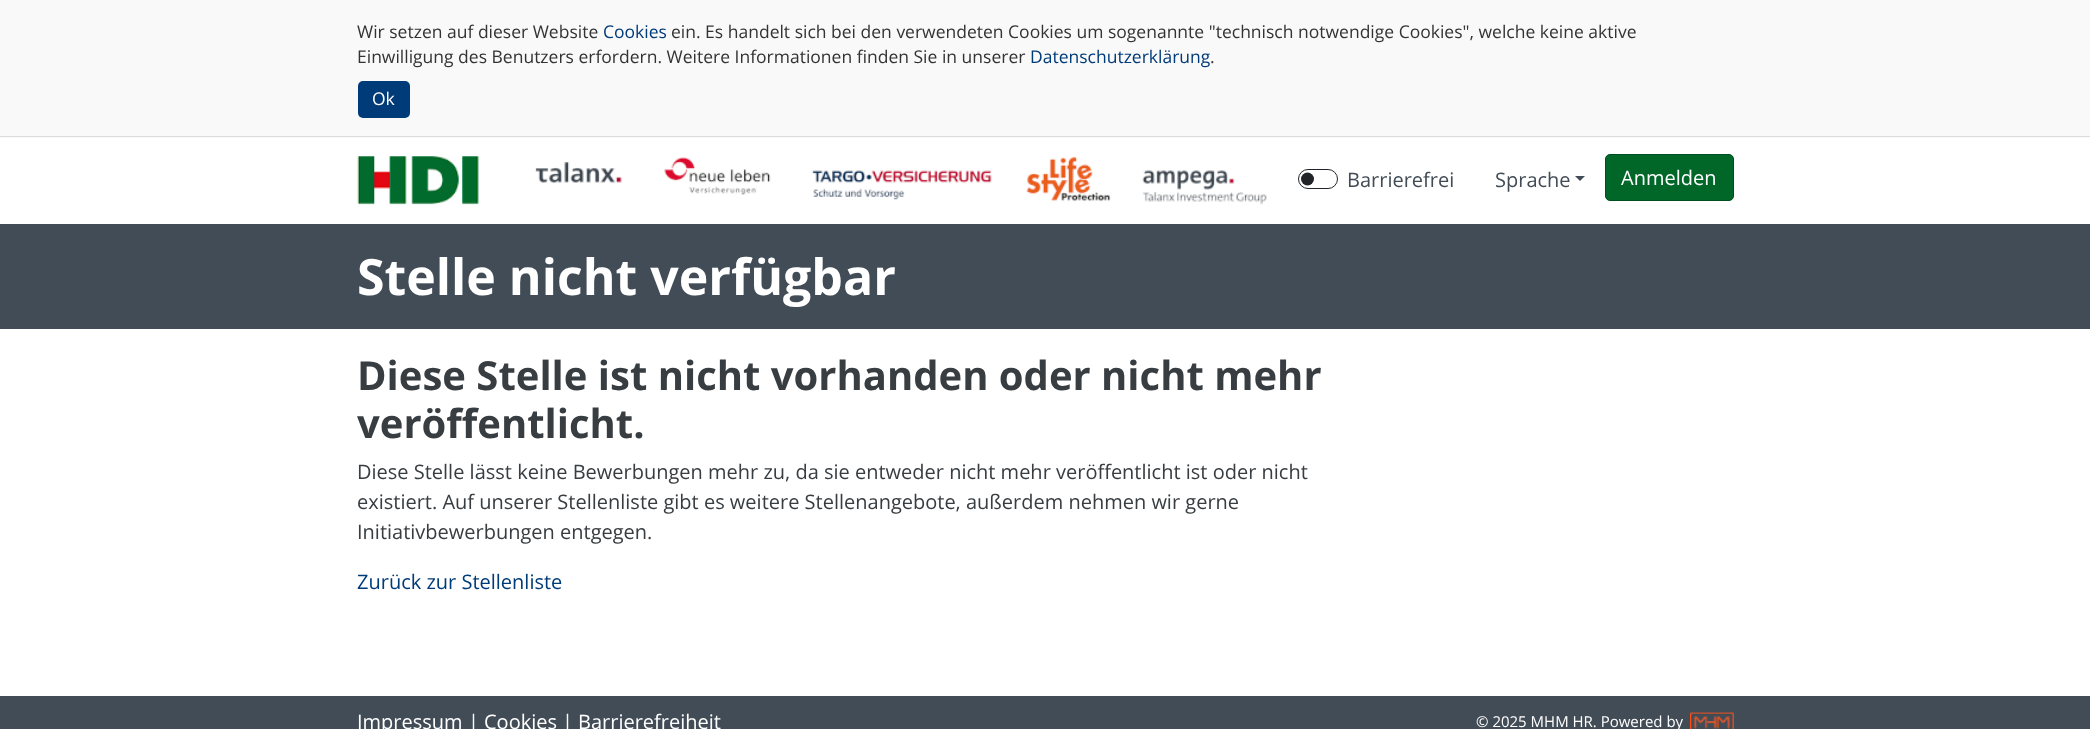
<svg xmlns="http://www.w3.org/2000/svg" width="2090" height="729">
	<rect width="100%" height="100%" fill="#FFFFFF" />
	<rect x="0" y="0" width="2090" height="138" fill="#F9F9F9" />
	<rect x="0" y="136" width="2090" height="1" fill="#DDDDDD" />
	<text x="357" y="38" font-family="Open Sans" font-size="17.5" fill="#333333">Wir setzen auf dieser Website</text>
	<text x="603" y="38" font-family="Open Sans" font-size="17.5" fill="#003B79">Cookies</text>
	<g font-family="Open Sans" font-size="17.5" fill="#333333">
		<text x="671" y="38">ein. Es handelt sich bei den verwendeten Cookies um sogenannte "technisch notwendige Cookies", welche keine aktive</text>
		<text x="357" y="63">Einwilligung des Benutzers erfordern. Weitere Informationen finden Sie in unserer</text>
	</g>
	<text x="1030" y="63" font-family="Open Sans" font-size="17.5" fill="#003B79">Datenschutzerklärung</text>
	<text x="1210" y="63" font-family="Open Sans" font-size="17.5" fill="#333333">.</text>
	<rect x="358" y="81" width="52" height="37" rx="5" fill="#003B79" />
	<text x="372" y="105" font-family="Open Sans" font-size="17.5" fill="#FFFFFF">Ok</text>
	<image x="357" y="156" width="910" height="49" href="assets/img1.png" />
	<circle cx="1307.5" cy="179" r="6.5" fill="#212529" />
	<rect x="1298.5" y="169.5" width="39" height="19" rx="9.5" fill="none" stroke="#212529" />
	<g font-family="Open Sans" font-size="20" fill="#424C56">
		<text x="1347" y="187">Barrierefrei</text>
		<text x="1495" y="187">Sprache</text>
	</g>
	<path d="M1575 176H1585L1580 181Z" fill="#424C56" />
	<rect x="1605.5" y="154.5" width="128" height="46" rx="4.5" fill="#006729" stroke="#004E1F" />
	<text x="1621" y="185" font-family="Open Sans" font-size="20" fill="#FFFFFF">Anmelden</text>
	<rect x="0" y="224" width="2090" height="105" fill="#424C56" />
	<text x="357" y="295" font-family="Open Sans" font-size="50" font-weight="700" fill="#FFFFFF">Stelle nicht verfügbar</text>
	<g font-family="Open Sans" font-size="40" font-weight="700" fill="#373D41">
		<text x="357" y="390">Diese Stelle ist nicht vorhanden oder nicht mehr</text>
		<text x="357" y="438">veröffentlicht.</text>
	</g>
	<g font-family="Open Sans" font-size="20" fill="#373D41">
		<text x="357" y="479">Diese Stelle lässt keine Bewerbungen mehr zu, da sie entweder nicht mehr veröffentlicht ist oder nicht</text>
		<text x="357" y="509">existiert. Auf unserer Stellenliste gibt es weitere Stellenangebote, außerdem nehmen wir gerne</text>
		<text x="357" y="539">Initiativbewerbungen entgegen.</text>
	</g>
	<text x="357" y="589" font-family="Open Sans" font-size="20" fill="#003B79">Zurück zur Stellenliste</text>
	<rect x="0" y="696" width="2090" height="33" fill="#424C56" />
	<text x="357" y="729" font-family="Open Sans" font-size="20" fill="#FFFFFF">Impressum</text>
	<text x="468" y="729" font-family="Open Sans" font-size="20" fill="#F8F9FA">|</text>
	<text x="484" y="729" font-family="Open Sans" font-size="20" fill="#FFFFFF">Cookies</text>
	<text x="562" y="729" font-family="Open Sans" font-size="20" fill="#F8F9FA">|</text>
	<text x="578" y="729" font-family="Open Sans" font-size="20" fill="#FFFFFF">Barrierefreiheit</text>
	<text x="1476" y="727" font-family="Open Sans" font-size="15" fill="#FFFFFF">© 2025 MHM HR. Powered by</text>
	<image x="1690" y="712" width="44" height="17" href="assets/img2.png" />
</svg>
